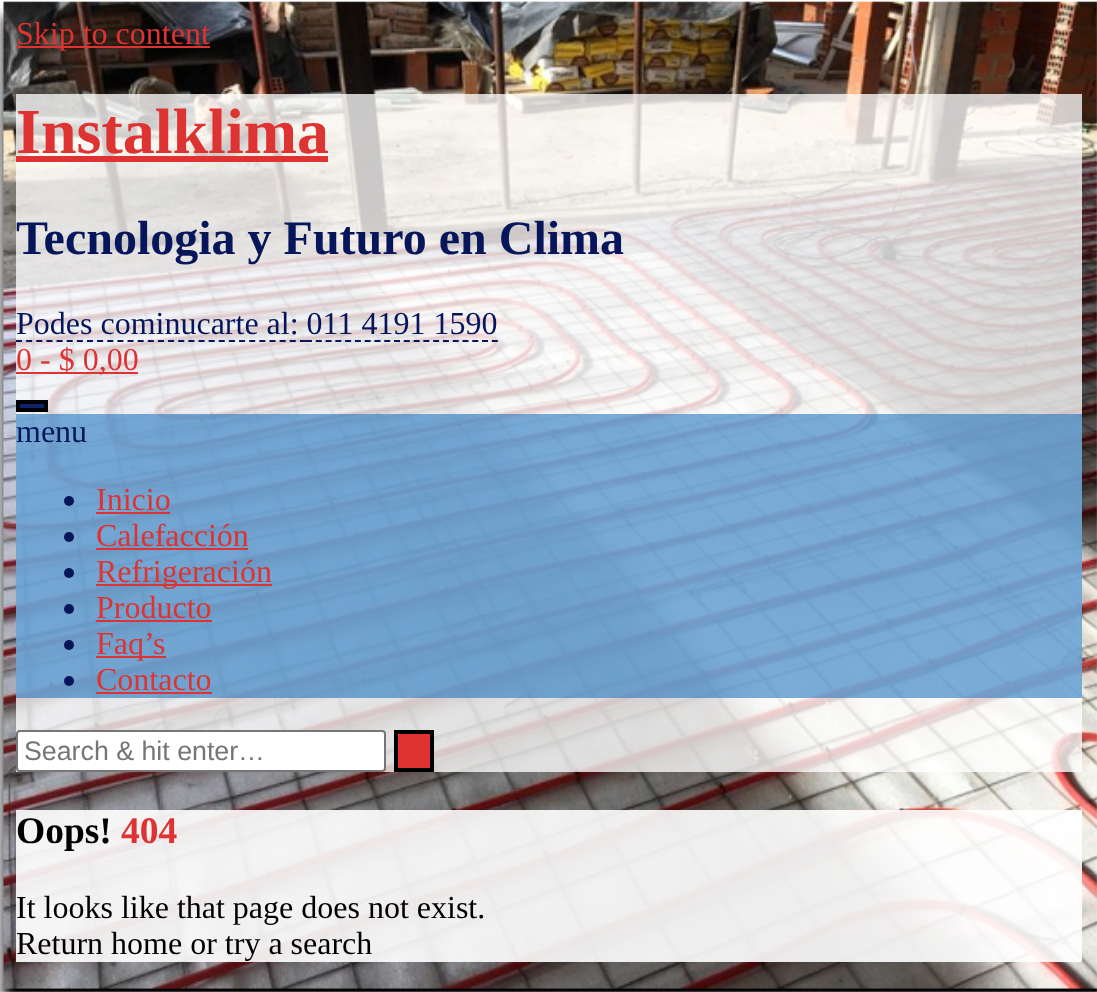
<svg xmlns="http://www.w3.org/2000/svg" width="1097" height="992">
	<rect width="100%" height="100%" fill="#FFFFFF" />
	<image x="0" y="1" width="1097" height="991" href="assets/img1.png" />
	<rect x="16" y="46" width="194" height="2" fill="#DD3333" />
	<text x="16" y="44" font-family="Liberation Serif" font-size="32" fill="#DD3333">Skip to content</text>
	<rect x="16" y="94" width="1066" height="678" fill="#FFFFFF" fill-opacity="0.77" />
	<text x="16" y="153" font-family="Liberation Serif" font-size="64" font-weight="700" fill="#DD3333">Instalklima</text>
	<rect x="16" y="156" width="312" height="6" fill="#DD3333" />
	<text x="16" y="254" font-family="Liberation Serif" font-size="48" font-weight="700" fill="#07165B">Tecnologia y Futuro en Clima</text>
	<text x="16" y="334" font-family="Liberation Serif" font-size="32" fill="#07165B">Podes cominucarte al: 011 4191 1590</text>
	<path d="M16 341H306" fill="none" stroke="#07165B" stroke-width="2" stroke-dasharray="6 4.14" />
	<path d="M306 341H498" fill="none" stroke="#07165B" stroke-width="2" stroke-dasharray="6 3.78" />
	<rect x="16" y="372" width="122" height="2" fill="#DD3333" />
	<text x="16" y="370" font-family="Liberation Serif" font-size="32" fill="#DD3333">0 - $ 0,00</text>
	<rect x="18" y="402" width="28" height="8" fill="#11216B" stroke="#000000" stroke-width="4" />
	<rect x="16" y="414" width="1066" height="284" fill="#1E73BE" fill-opacity="0.59" />
	<text x="16" y="442" font-family="Liberation Serif" font-size="32" fill="#07165B">menu</text>
	<circle cx="69" cy="501" r="5" fill="#07165B" />
	<text x="96" y="510" font-family="Liberation Serif" font-size="32" fill="#DD3333">Inicio</text>
	<rect x="96" y="512" width="74" height="2" fill="#DD3333" />
	<circle cx="69" cy="537" r="5" fill="#07165B" />
	<text x="96" y="546" font-family="Liberation Serif" font-size="32" fill="#DD3333">Calefacción</text>
	<rect x="96" y="548" width="152" height="2" fill="#DD3333" />
	<circle cx="69" cy="573" r="5" fill="#07165B" />
	<rect x="96" y="584" width="176" height="2" fill="#DD3333" />
	<text x="96" y="582" font-family="Liberation Serif" font-size="32" fill="#DD3333">Refrigeración</text>
	<circle cx="69" cy="609" r="5" fill="#07165B" />
	<text x="96" y="618" font-family="Liberation Serif" font-size="32" fill="#DD3333">Producto</text>
	<rect x="96" y="620" width="116" height="2" fill="#DD3333" />
	<circle cx="69" cy="645" r="5" fill="#07165B" />
	<rect x="96" y="656" width="70" height="2" fill="#DD3333" />
	<text x="96" y="654" font-family="Liberation Serif" font-size="32" fill="#DD3333">Faq’s</text>
	<circle cx="69" cy="681" r="5" fill="#07165B" />
	<text x="96" y="690" font-family="Liberation Serif" font-size="32" fill="#DD3333">Contacto</text>
	<rect x="96" y="692" width="116" height="2" fill="#DD3333" />
	<rect x="17" y="731" width="368" height="40" rx="3" fill="#FFFFFF" stroke="#767676" stroke-width="2" />
	<text x="24" y="760" font-family="Liberation Sans" font-size="26.75" fill="#757575">Search &amp; hit enter…</text>
	<rect x="396" y="732" width="36" height="38" fill="#DD3333" stroke="#000000" stroke-width="4" />
	<rect x="16" y="810" width="1066" height="152" fill="#FFFFFF" fill-opacity="0.9" />
	<text x="16" y="843" font-family="Liberation Serif" font-size="37.5" font-weight="700" fill="#000000">Oops!</text>
	<text x="121" y="843" font-family="Liberation Serif" font-size="37.5" font-weight="700" fill="#DD3333">404</text>
	<g font-family="Liberation Serif" font-size="32" fill="#000000">
		<text x="16" y="918">It looks like that page does not exist.</text>
		<text x="16" y="954">Return home or try a search</text>
	</g>
</svg>
